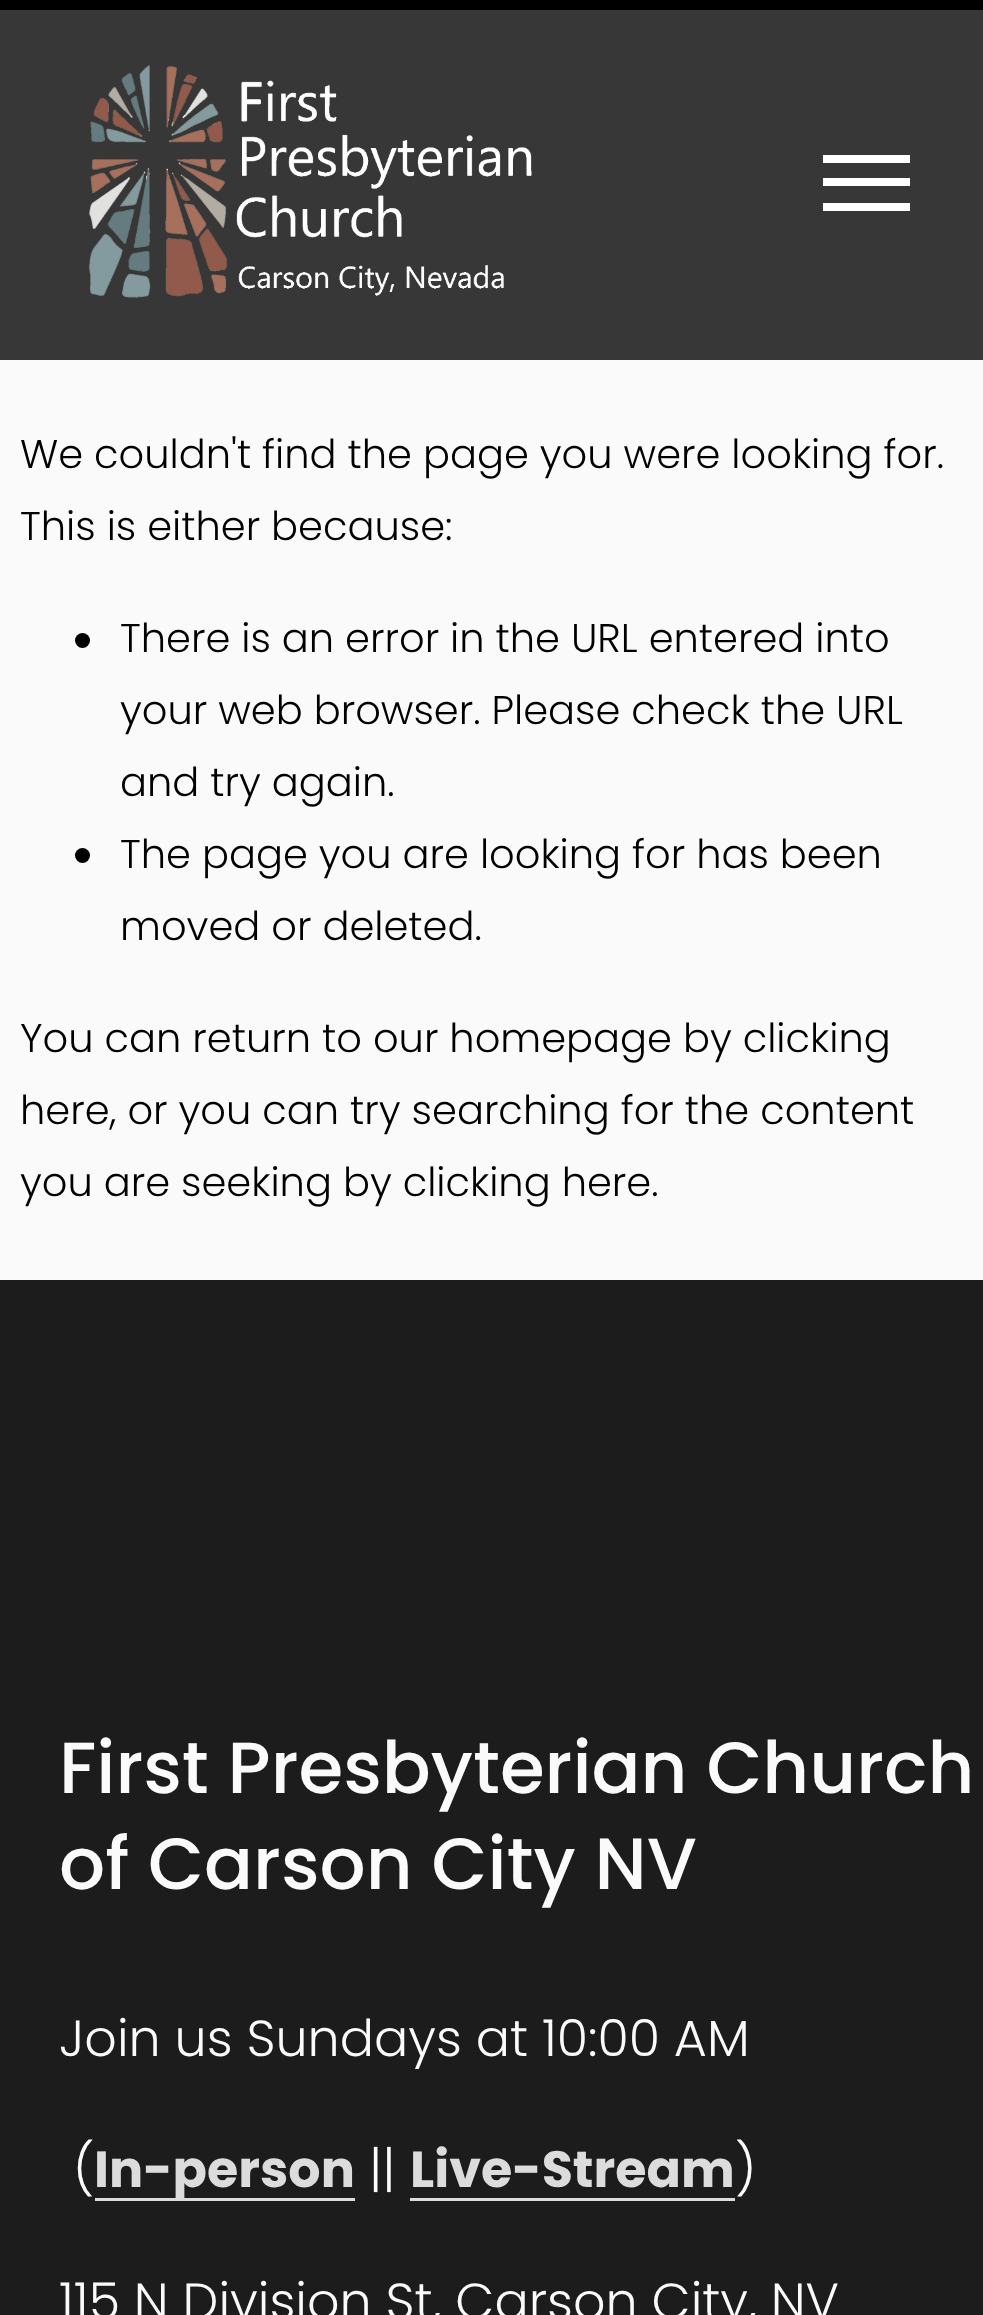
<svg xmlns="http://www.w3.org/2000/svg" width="983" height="2315">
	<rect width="100%" height="100%" fill="#FAFAFA" />
	<rect x="0" y="0" width="983" height="10" fill="#000000" />
	<rect x="0" y="10" width="983" height="350" fill="#373737" />
	<image x="89" y="65" width="443" height="233" href="assets/img1.png" />
	<rect x="823" y="155" width="87" height="8" fill="#FFFFFF" />
	<rect x="823" y="178" width="87" height="8" fill="#FFFFFF" />
	<rect x="823" y="203" width="87" height="8" fill="#FFFFFF" />
	<g font-family="Poppins" font-size="40" font-weight="300" fill="#000000">
		<text x="20" y="468">We couldn't find the page you were looking for.</text>
		<text x="20" y="540">This is either because:</text>
	</g>
	<circle cx="82.5" cy="640.5" r="7.5" fill="#000000" />
	<g font-family="Poppins" font-size="40" font-weight="300" fill="#000000">
		<text x="120" y="652">There is an error in the URL entered into</text>
		<text x="120" y="724">your web browser. Please check the URL</text>
		<text x="120" y="796">and try again.</text>
	</g>
	<circle cx="82.5" cy="855.5" r="7.5" fill="#000000" />
	<g font-family="Poppins" font-size="40" font-weight="300" fill="#000000">
		<text x="120" y="868">The page you are looking for has been</text>
		<text x="120" y="940">moved or deleted.</text>
		<text x="20" y="1052">You can return to our homepage by clicking</text>
		<text x="20" y="1124">here, or you can try searching for the content</text>
		<text x="20" y="1196">you are seeking by clicking here.</text>
	</g>
	<rect x="0" y="1280" width="983" height="1035" fill="#1C1C1C" />
	<g font-family="Poppins" font-size="72.4" font-weight="500" fill="#FAFAFA">
		<text x="59" y="1793">First Presbyterian Church</text>
		<text x="59" y="1889">of Carson City NV</text>
	</g>
	<g font-family="Poppins" font-size="50.75" font-weight="300" fill="#FAFAFA">
		<text x="59" y="2056">Join us Sundays at 10:00 AM</text>
		<text x="73" y="2187">(</text>
	</g>
	<rect x="95" y="2198" width="260" height="3" fill="#DCDCDC" />
	<text x="94" y="2187" font-family="Poppins" font-size="50.75" font-weight="700" fill="#DCDCDC">In-person</text>
	<text x="369" y="2187" font-family="Poppins" font-size="50.75" font-weight="300" fill="#FAFAFA">||</text>
	<text x="410" y="2187" font-family="Poppins" font-size="50.75" font-weight="700" fill="#DCDCDC">Live-Stream</text>
	<rect x="410" y="2198" width="325" height="3" fill="#DCDCDC" />
	<g font-family="Poppins" font-size="50.75" font-weight="300" fill="#FAFAFA">
		<text x="735" y="2187">)</text>
		<text x="59" y="2319">115 N Division St, Carson City, NV</text>
	</g>
</svg>
